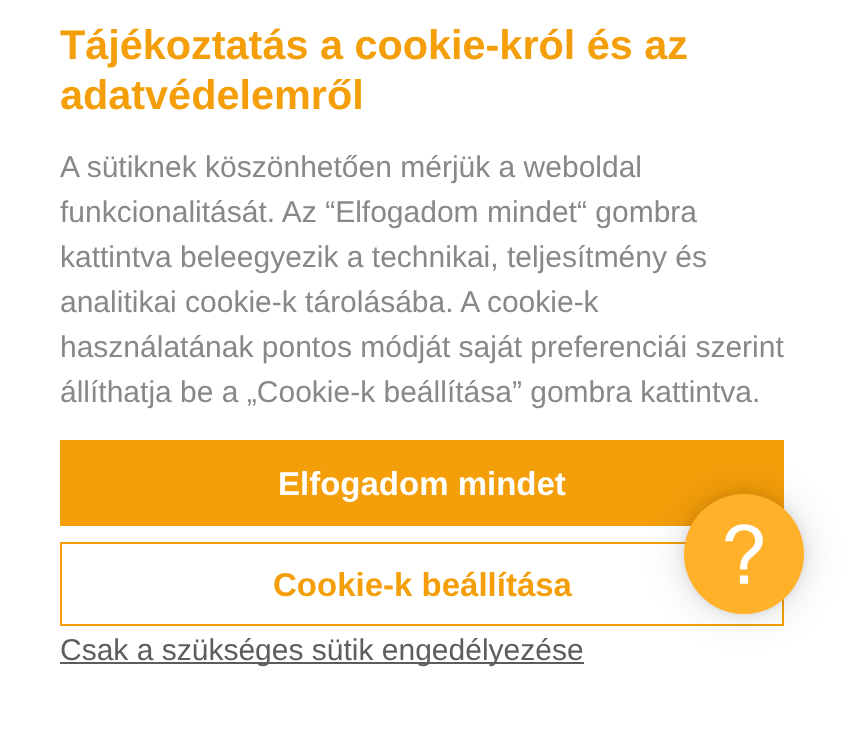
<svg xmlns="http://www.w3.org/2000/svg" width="843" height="734">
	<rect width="100%" height="100%" fill="#FFFFFF" />
	<g font-family="Liberation Sans" font-size="41.4" font-weight="700" fill="#F49E0A">
		<text x="60" y="59">Tájékoztatás a cookie-król és az</text>
		<text x="60" y="109">adatvédelemről</text>
	</g>
	<g font-family="Liberation Sans" font-size="30" fill="#888888">
		<text x="60" y="177">A sütiknek köszönhetően mérjük a weboldal</text>
		<text x="60" y="222">funkcionalitását. Az “Elfogadom mindet“ gombra</text>
		<text x="60" y="267">kattintva beleegyezik a technikai, teljesítmény és</text>
		<text x="60" y="312">analitikai cookie-k tárolásába. A cookie-k</text>
		<text x="60" y="357">használatának pontos módját saját preferenciái szerint</text>
		<text x="60" y="402">állíthatja be a „Cookie-k beállítása” gombra kattintva.</text>
	</g>
	<rect x="60" y="440" width="724" height="86" fill="#F49E0A" />
	<text x="278" y="495" font-family="Liberation Sans" font-size="33" font-weight="700" fill="#FFFFFF">Elfogadom mindet</text>
	<rect x="61" y="543" width="722" height="82" fill="none" stroke="#F49E0A" stroke-width="2" />
	<text x="273" y="596" font-family="Liberation Sans" font-size="33" font-weight="700" fill="#F49E0A">Cookie-k beállítása</text>
	<rect x="60" y="662" width="524" height="2" fill="#5D5D5D" />
	<text x="60" y="660" font-family="Liberation Sans" font-size="30" fill="#5D5D5D">Csak a szükséges sütik engedélyezése</text>
	<rect x="684" y="494" width="120" height="120" rx="60" fill="#000000" fill-opacity="0.15" filter="blur(20px)" />
	<rect x="684" y="494" width="120" height="120" rx="60" fill="#000000" fill-opacity="0.1" filter="blur(5px)" />
	<image x="684" y="494" width="120" height="120" href="assets/img1.png" />
</svg>
